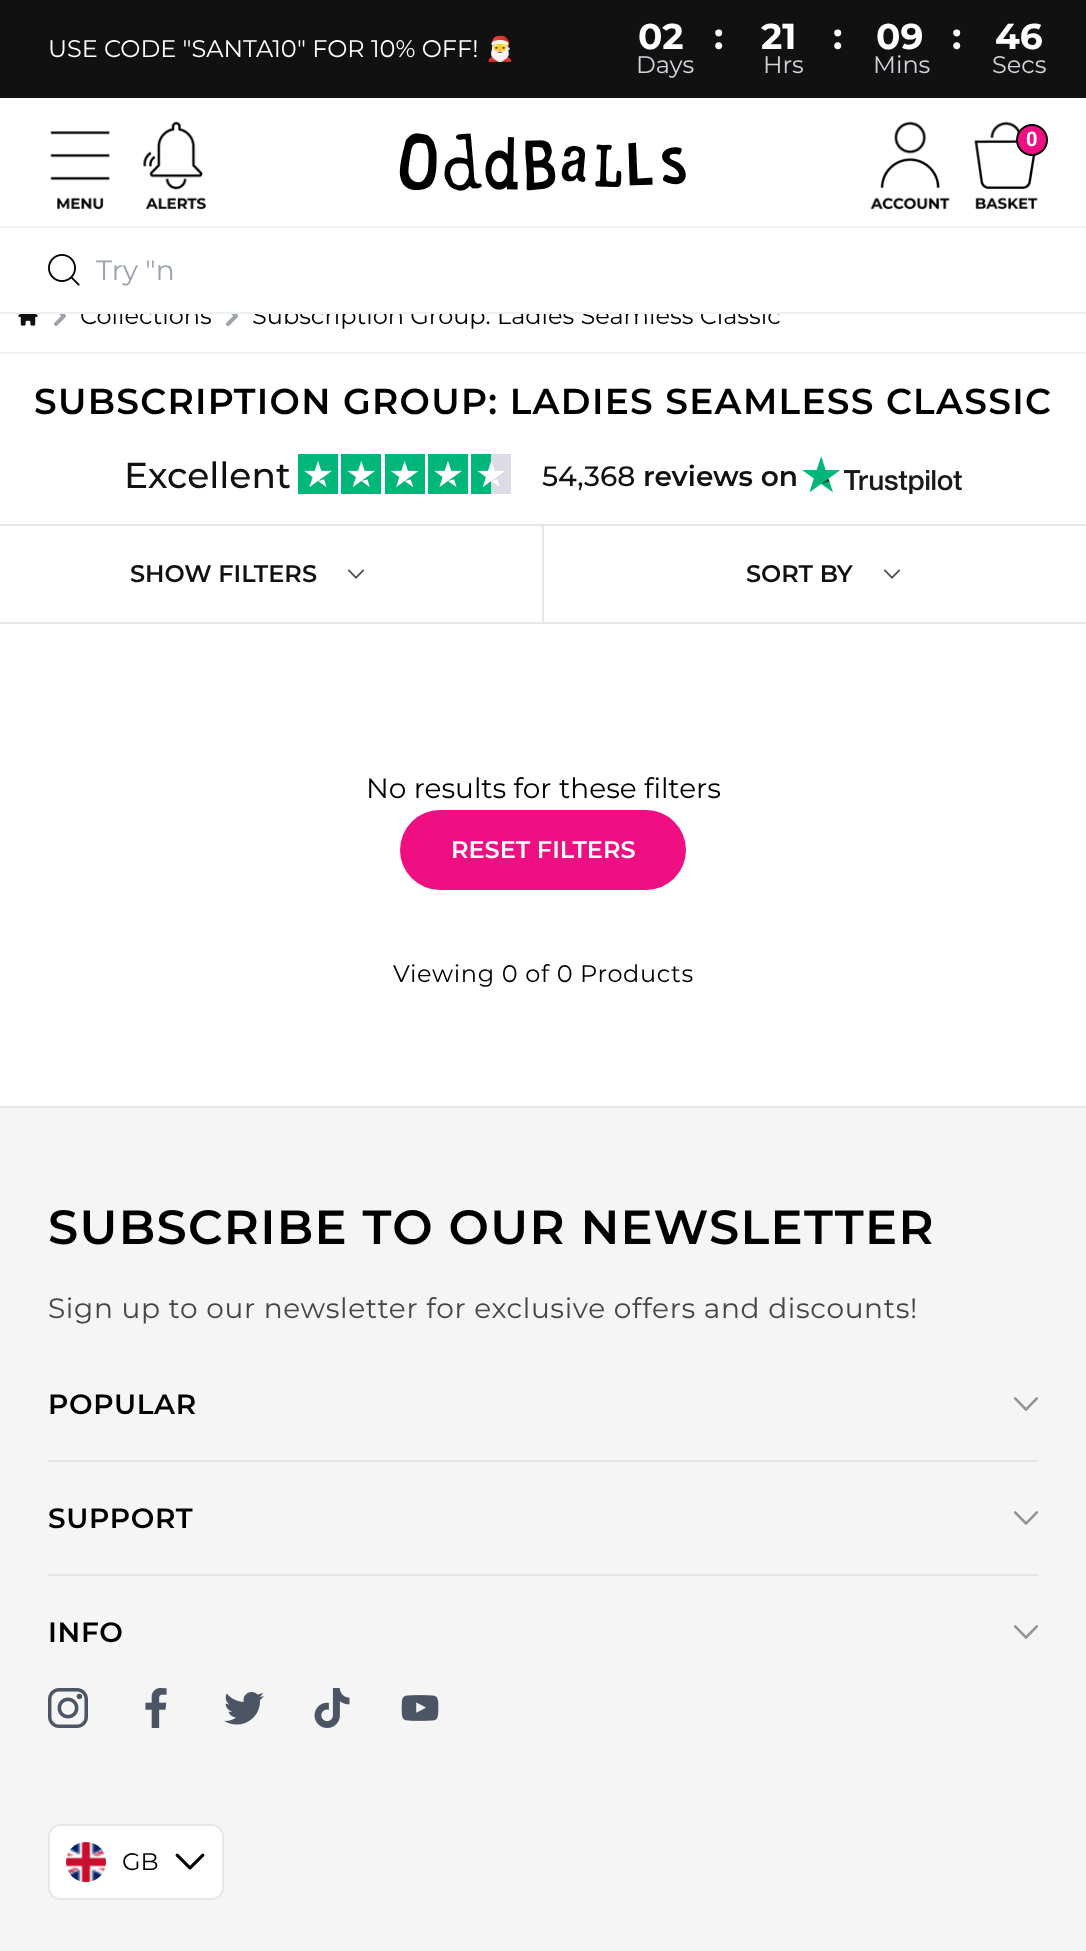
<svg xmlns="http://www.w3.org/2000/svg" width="1086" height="1951">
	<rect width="100%" height="100%" fill="#FFFFFF" />
	<rect x="0" y="0" width="1086" height="98" fill="#111111" />
	<text x="48" y="57" font-family="Montserrat" font-size="24" fill="#FFFFFF">USE CODE "SANTA10" FOR 10% OFF!</text>
	<text x="485" y="57" font-family="Noto Color Emoji" font-size="24" fill="#FFFFFF">🎅</text>
	<g font-family="Montserrat" font-size="36" font-weight="700" fill="#FFFFFF">
		<text x="638" y="49">02</text>
		<text x="714" y="49">:</text>
		<text x="761" y="49">21</text>
		<text x="833" y="49">:</text>
		<text x="876" y="49">09</text>
		<text x="952" y="49">:</text>
		<text x="995" y="49">46</text>
	</g>
	<g font-family="Montserrat" font-size="24" fill="#D1D5DB">
		<text x="636" y="73">Days</text>
		<text x="763" y="73">Hrs</text>
		<text x="873" y="73">Mins</text>
		<text x="992" y="73">Secs</text>
	</g>
	<g font-family="Montserrat" font-size="24" fill="#000000">
		<text x="80" y="324">Collections</text>
		<text x="252" y="324">Subscription Group: Ladies Seamless Classic</text>
	</g>
	<rect x="82" y="306" width="696" height="6" fill="#FFFFFF" />
	<image x="50" y="131" width="60" height="79" href="assets/img1.png" />
	<image x="143" y="121" width="63" height="89" href="assets/img2.png" />
	<image x="399" y="133" width="287" height="58" href="assets/img3.png" />
	<image x="870" y="121" width="80" height="89" href="assets/img4.png" />
	<image x="974" y="121" width="64" height="89" href="assets/img5.png" />
	<circle cx="1032" cy="140" r="15" fill="#F00F83" stroke="#000000" stroke-width="2" />
	<text x="1026" y="146" font-family="Roboto" font-size="20" font-weight="700" fill="#FFFFFF">0</text>
	<rect x="0" y="226" width="1086" height="2" fill="#F0F0F0" />
	<rect x="0" y="312" width="1086" height="2" fill="#F0F0F0" />
	<image x="48" y="254" width="32" height="32" href="assets/img6.png" />
	<text x="96" y="280" font-family="Montserrat" font-size="28" fill="#9CA3AF">Try "n</text>
	<rect x="0" y="352" width="1086" height="2" fill="#F3F4F6" />
	<image x="18" y="314" width="20" height="12" href="assets/img7.png" />
	<image x="54" y="314" width="12" height="12" href="assets/img8.png" />
	<image x="226" y="314" width="12" height="12" href="assets/img8.png" />
	<text x="34" y="414" font-family="Montserrat" font-size="36" font-weight="600" letter-spacing="1.3" fill="#000000">SUBSCRIPTION GROUP: LADIES SEAMLESS CLASSIC</text>
	<text x="124" y="488" font-family="Montserrat" font-size="36" font-weight="500" fill="#111111">Excellent</text>
	<image x="298" y="454" width="213" height="40" href="assets/img9.png" />
	<text x="542" y="486" font-family="Montserrat" font-size="28" font-weight="500" fill="#111111">54,368</text>
	<text x="643" y="486" font-family="Montserrat" font-size="28" font-weight="600" fill="#111111">reviews on</text>
	<image x="802" y="456" width="160" height="38" href="assets/img10.png" />
	<rect x="0" y="524" width="1086" height="2" fill="#E5E7EB" />
	<rect x="0" y="622" width="1086" height="2" fill="#E5E7EB" />
	<rect x="542" y="526" width="2" height="96" fill="#E5E7EB" />
	<text x="130" y="582" font-family="Montserrat" font-size="24" font-weight="600" fill="#111111">SHOW FILTERS</text>
	<image x="348" y="569" width="16" height="10" href="assets/img11.png" />
	<text x="746" y="582" font-family="Montserrat" font-size="24" font-weight="600" fill="#111111">SORT BY</text>
	<image x="884" y="569" width="16" height="10" href="assets/img11.png" />
	<text x="366" y="798" font-family="Montserrat" font-size="28" fill="#000000">No results for these filters</text>
	<rect x="400" y="810" width="286" height="80" rx="40" fill="#F00F83" />
	<text x="451" y="858" font-family="Montserrat" font-size="24" font-weight="600" fill="#FFFFFF">RESET FILTERS</text>
	<rect x="0" y="1106" width="1086" height="2" fill="#E5E7EB" />
	<text x="393" y="982" font-family="Montserrat" font-size="24" letter-spacing="0.65" fill="#000000">Viewing 0 of 0 Products</text>
	<rect x="0" y="1108" width="1086" height="843" fill="#F5F5F5" />
	<text x="48" y="1244" font-family="Montserrat" font-size="48" font-weight="600" letter-spacing="1.3" fill="#000000">SUBSCRIBE TO OUR NEWSLETTER</text>
	<text x="48" y="1318" font-family="Montserrat" font-size="28" letter-spacing="0.65" fill="#454545">Sign up to our newsletter for exclusive offers and discounts!</text>
	<text x="48" y="1414" font-family="Montserrat" font-size="28" font-weight="600" letter-spacing="0.65" fill="#000000">POPULAR</text>
	<image x="1014" y="1397" width="24" height="14" href="assets/img12.png" />
	<rect x="48" y="1460" width="990" height="2" fill="#E5E5E5" />
	<text x="48" y="1528" font-family="Montserrat" font-size="28" font-weight="600" letter-spacing="0.65" fill="#000000">SUPPORT</text>
	<image x="1014" y="1511" width="24" height="14" href="assets/img12.png" />
	<rect x="48" y="1574" width="990" height="2" fill="#E5E5E5" />
	<text x="48" y="1642" font-family="Montserrat" font-size="28" font-weight="600" letter-spacing="0.65" fill="#000000">INFO</text>
	<image x="1014" y="1625" width="24" height="14" href="assets/img12.png" />
	<image x="48" y="1688" width="40" height="40" href="assets/img13.png" />
	<image x="145" y="1688" width="22" height="40" href="assets/img14.png" />
	<image x="224" y="1692" width="40" height="33" href="assets/img15.png" />
	<image x="314" y="1688" width="36" height="40" href="assets/img16.png" />
	<image x="401" y="1695" width="38" height="26" href="assets/img17.png" />
	<rect x="49" y="1825" width="174" height="74" rx="11" fill="#FFFFFF" stroke="#E5E7EB" stroke-width="2" />
	<image x="66" y="1842" width="40" height="40" href="assets/img18.png" />
	<text x="122" y="1870" font-family="Montserrat" font-size="24" fill="#000000">GB</text>
	<image x="175" y="1853" width="30" height="17" href="assets/img19.png" />
</svg>
